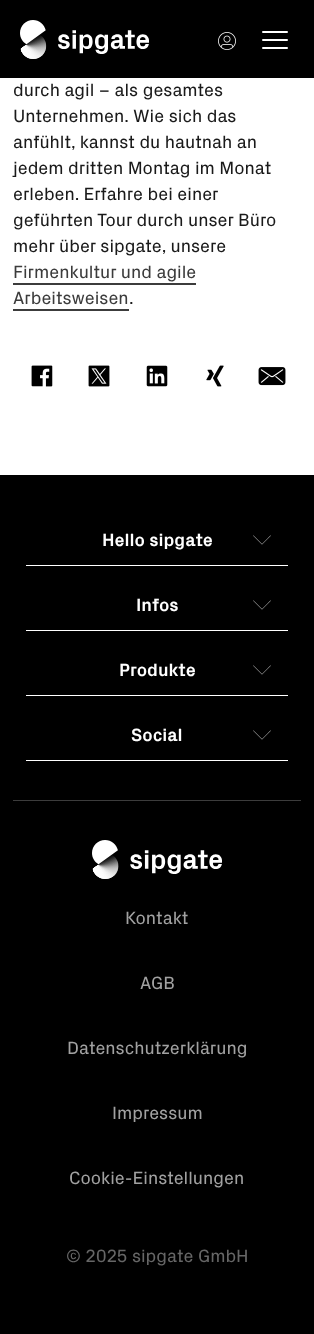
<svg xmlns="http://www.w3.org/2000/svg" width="314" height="1334">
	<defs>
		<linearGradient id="g1" gradientUnits="userSpaceOnUse" x1="105" y1="285" x2="105" y2="261"><stop offset="0" stop-color="#3C3C3C" /><stop offset="0.08" stop-color="#3C3C3C" /><stop offset="0.08" stop-color="#FFFFFF" /><stop offset="1" stop-color="#FFFFFF" /></linearGradient>
		<linearGradient id="g2" gradientUnits="userSpaceOnUse" x1="71" y1="311" x2="71" y2="287"><stop offset="0" stop-color="#3C3C3C" /><stop offset="0.08" stop-color="#3C3C3C" /><stop offset="0.08" stop-color="#FFFFFF" /><stop offset="1" stop-color="#FFFFFF" /></linearGradient>
	</defs>
	<rect width="100%" height="100%" fill="#FFFFFF" />
	<rect x="0" y="0" width="314" height="78" fill="#000000" />
	<image x="20" y="20" width="129" height="39" href="assets/img1.png" />
	<image x="218" y="32" width="18" height="18" href="assets/img2.png" />
	<rect x="262" y="31" width="26" height="2" rx="1" fill="#FFFFFF" />
	<rect x="262" y="39" width="26" height="2" rx="1" fill="#FFFFFF" />
	<rect x="262" y="47" width="26" height="2" rx="1" fill="#FFFFFF" />
	<g font-family="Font" font-size="18" fill="#1A1A1A">
		<text x="13" y="96">durch agil – als gesamtes</text>
		<text x="13" y="122">Unternehmen. Wie sich das</text>
		<text x="13" y="148">anfühlt, kannst du hautnah an</text>
		<text x="13" y="174">jedem dritten Montag im Monat</text>
		<text x="13" y="200">erleben. Erfahre bei einer</text>
		<text x="13" y="226">geführten Tour durch unser Büro</text>
		<text x="13" y="252">mehr über sipgate, unsere</text>
	</g>
	<text x="13" y="278" font-family="Font" font-size="18" fill="#3C3C3C">Firmenkultur und agile</text>
	<rect x="13" y="283" width="183" height="2" fill="url(#g1)" />
	<text x="13" y="304" font-family="Font" font-size="18" fill="#3C3C3C">Arbeitsweisen</text>
	<rect x="13" y="309" width="116" height="2" fill="url(#g2)" />
	<text x="129" y="304" font-family="Font" font-size="18" fill="#1A1A1A">.</text>
	<image x="31" y="365" width="22" height="22" href="assets/img3.png" />
	<image x="88" y="365" width="22" height="22" href="assets/img4.png" />
	<image x="146" y="365" width="22" height="22" href="assets/img5.png" />
	<image x="206" y="365" width="18" height="22" href="assets/img6.png" />
	<image x="258" y="367" width="28" height="19" href="assets/img7.png" />
	<rect x="0" y="475" width="314" height="859" fill="#000000" />
	<rect x="26" y="565" width="262" height="1" fill="#FFFFFF" />
	<text x="102" y="546" font-family="Font" font-size="18" font-weight="700" fill="#FFFFFF">Hello sipgate</text>
	<path d="M262 544L253.5 535.5H253L262 544.5L271 535.5H270.5Z" fill="#FFFFFF" />
	<rect x="26" y="630" width="262" height="1" fill="#FFFFFF" />
	<text x="136" y="611" font-family="Font" font-size="18" font-weight="700" fill="#FFFFFF">Infos</text>
	<path d="M262 609L253.5 600.5H253L262 609.5L271 600.5H270.5Z" fill="#FFFFFF" />
	<rect x="26" y="695" width="262" height="1" fill="#FFFFFF" />
	<text x="119" y="676" font-family="Font" font-size="18" font-weight="700" fill="#FFFFFF">Produkte</text>
	<path d="M262 674L253.5 665.5H253L262 674.5L271 665.5H270.5Z" fill="#FFFFFF" />
	<rect x="26" y="760" width="262" height="1" fill="#FFFFFF" />
	<text x="131" y="741" font-family="Font" font-size="18" font-weight="700" fill="#FFFFFF">Social</text>
	<path d="M262 739L253.5 730.5H253L262 739.5L271 730.5H270.5Z" fill="#FFFFFF" />
	<rect x="13" y="800" width="288" height="1" fill="#3C3C3C" />
	<image x="92" y="840" width="130" height="39" href="assets/img8.png" />
	<g font-family="Font" font-size="18" fill="#A1A1A1">
		<text x="125" y="924">Kontakt</text>
		<text x="140" y="989">AGB</text>
		<text x="67" y="1054">Datenschutzerklärung</text>
		<text x="112" y="1119">Impressum</text>
		<text x="69" y="1184">Cookie-Einstellungen</text>
	</g>
	<text x="66" y="1262" font-family="Font" font-size="18" fill="#666666">© 2025 sipgate GmbH</text>
</svg>
